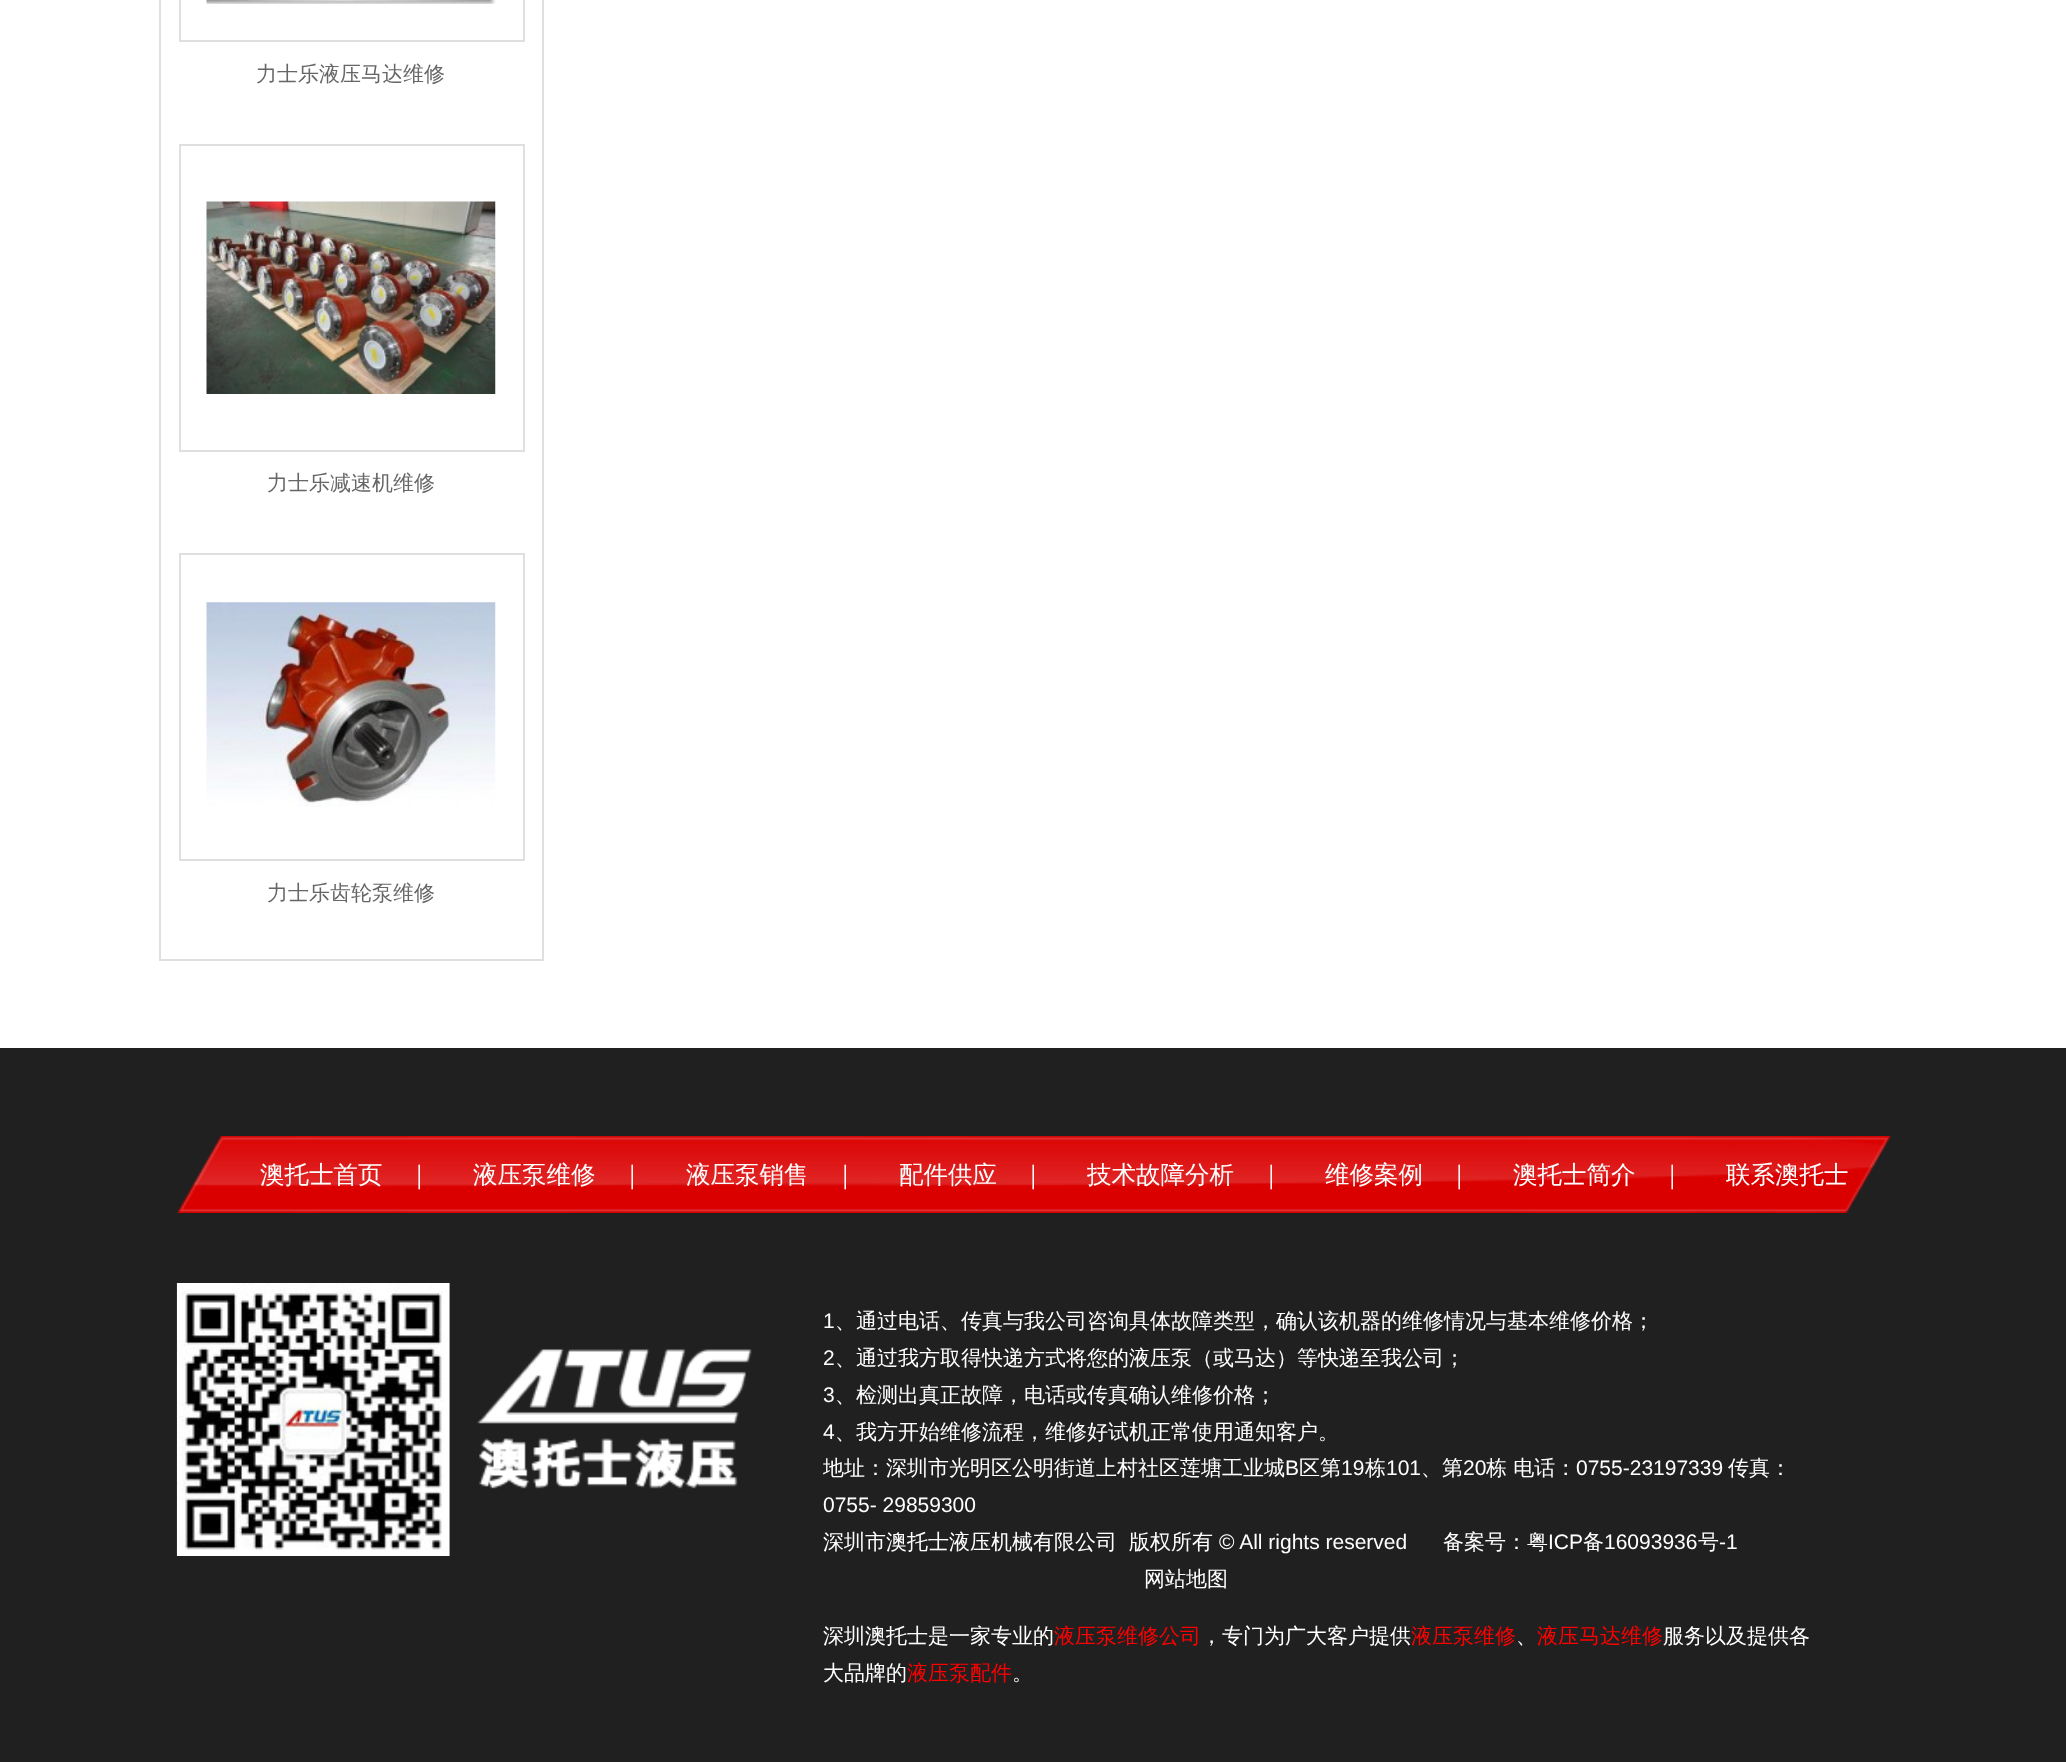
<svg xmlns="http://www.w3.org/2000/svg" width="2066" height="1762">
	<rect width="100%" height="100%" fill="#FFFFFF" />
	<rect x="160" y="-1" width="383" height="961" fill="none" stroke="#DFDFDF" stroke-width="2" />
	<rect x="180" y="-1" width="344" height="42" fill="none" stroke="#DFDFDF" stroke-width="2" />
	<image x="206" y="0" width="290" height="4" href="assets/img1.png" />
	<text x="256" y="81" font-family="WenQuanYi Zen Hei" font-size="21" font-weight="500" fill="#666666">力士乐液压马达维修</text>
	<rect x="180" y="145" width="344" height="306" fill="none" stroke="#DFDFDF" stroke-width="2" />
	<image x="206" y="201" width="290" height="193" href="assets/img2.png" />
	<text x="267" y="490" font-family="WenQuanYi Zen Hei" font-size="21" font-weight="500" fill="#666666">力士乐减速机维修</text>
	<rect x="180" y="554" width="344" height="306" fill="none" stroke="#DFDFDF" stroke-width="2" />
	<image x="206" y="602" width="290" height="205" href="assets/img3.png" />
	<text x="267" y="900" font-family="WenQuanYi Zen Hei" font-size="21" font-weight="500" fill="#666666">力士乐齿轮泵维修</text>
	<rect x="0" y="1048" width="2066" height="714" fill="#202020" />
	<image x="176" y="1136" width="1715" height="77" href="assets/img4.png" />
	<g font-family="WenQuanYi Zen Hei" font-size="24.5" font-weight="500" fill="#FFFFFF">
		<text x="260" y="1183">澳托士首页</text>
		<text x="407" y="1183">｜</text>
		<text x="473" y="1183">液压泵维修</text>
		<text x="620" y="1183">｜</text>
		<text x="686" y="1183">液压泵销售</text>
		<text x="833" y="1183">｜</text>
		<text x="899" y="1183">配件供应</text>
		<text x="1021" y="1183">｜</text>
		<text x="1087" y="1183">技术故障分析</text>
		<text x="1259" y="1183">｜</text>
		<text x="1325" y="1183">维修案例</text>
		<text x="1447" y="1183">｜</text>
		<text x="1513" y="1183">澳托士简介</text>
		<text x="1660" y="1183">｜</text>
		<text x="1726" y="1183">联系澳托士</text>
	</g>
	<image x="176" y="1283" width="274" height="273" href="assets/img5.png" />
	<image x="477" y="1349" width="275" height="140" href="assets/img6.png" />
	<text x="823" y="1328" font-family="Liberation Sans" font-size="21" fill="#FFFFFF">1</text>
	<text x="835" y="1328" font-family="WenQuanYi Zen Hei" font-size="21" font-weight="500" fill="#FFFFFF">、通过电话、传真与我公司咨询具体故障类型，确认该机器的维修情况与基本维修价格；</text>
	<text x="823" y="1365" font-family="Liberation Sans" font-size="21" fill="#FFFFFF">2</text>
	<text x="835" y="1365" font-family="WenQuanYi Zen Hei" font-size="21" font-weight="500" fill="#FFFFFF">、通过我方取得快递方式将您的液压泵（或马达）等快递至我公司；</text>
	<text x="823" y="1402" font-family="Liberation Sans" font-size="21" fill="#FFFFFF">3</text>
	<text x="835" y="1402" font-family="WenQuanYi Zen Hei" font-size="21" font-weight="500" fill="#FFFFFF">、检测出真正故障，电话或传真确认维修价格；</text>
	<text x="823" y="1439" font-family="Liberation Sans" font-size="21" fill="#FFFFFF">4</text>
	<g font-family="WenQuanYi Zen Hei" font-size="21" font-weight="500" fill="#FFFFFF">
		<text x="835" y="1439">、我方开始维修流程，维修好试机正常使用通知客户。</text>
		<text x="823" y="1475">地址：深圳市光明区公明街道上村社区莲塘工业城</text>
	</g>
	<text x="1285" y="1475" font-family="Liberation Sans" font-size="21" fill="#FFFFFF">B</text>
	<text x="1299" y="1475" font-family="WenQuanYi Zen Hei" font-size="21" font-weight="500" fill="#FFFFFF">区第</text>
	<text x="1341" y="1475" font-family="Liberation Sans" font-size="21" fill="#FFFFFF">19</text>
	<text x="1365" y="1475" font-family="WenQuanYi Zen Hei" font-size="21" font-weight="500" fill="#FFFFFF">栋</text>
	<text x="1386" y="1475" font-family="Liberation Sans" font-size="21" fill="#FFFFFF">101</text>
	<text x="1421" y="1475" font-family="WenQuanYi Zen Hei" font-size="21" font-weight="500" fill="#FFFFFF">、第</text>
	<text x="1463" y="1475" font-family="Liberation Sans" font-size="21" fill="#FFFFFF">20</text>
	<text x="1486" y="1475" font-family="WenQuanYi Zen Hei" font-size="21" font-weight="500" fill="#FFFFFF">栋 电话：</text>
	<text x="1576" y="1475" font-family="Liberation Sans" font-size="21" fill="#FFFFFF">0755-23197339</text>
	<text x="1728" y="1475" font-family="WenQuanYi Zen Hei" font-size="21" font-weight="500" fill="#FFFFFF">传真：</text>
	<text x="823" y="1512" font-family="Liberation Sans" font-size="21" fill="#FFFFFF">0755- 29859300</text>
	<g font-family="WenQuanYi Zen Hei" font-size="21" font-weight="500" fill="#FFFFFF">
		<text x="823" y="1549">深圳市澳托士液压机械有限公司</text>
		<text x="1129" y="1549">版权所有</text>
	</g>
	<text x="1219" y="1549" font-family="Liberation Sans" font-size="21" fill="#FFFFFF">© All rights reserved</text>
	<text x="1443" y="1549" font-family="WenQuanYi Zen Hei" font-size="21" font-weight="500" fill="#FFFFFF">备案号：粤</text>
	<text x="1548" y="1549" font-family="Liberation Sans" font-size="21" fill="#FFFFFF">ICP</text>
	<text x="1583" y="1549" font-family="WenQuanYi Zen Hei" font-size="21" font-weight="500" fill="#FFFFFF">备</text>
	<text x="1604" y="1549" font-family="Liberation Sans" font-size="21" fill="#FFFFFF">16093936</text>
	<text x="1698" y="1549" font-family="WenQuanYi Zen Hei" font-size="21" font-weight="500" fill="#FFFFFF">号</text>
	<text x="1719" y="1549" font-family="Liberation Sans" font-size="21" fill="#FFFFFF">-1</text>
	<g font-family="WenQuanYi Zen Hei" font-size="21" font-weight="500" fill="#FFFFFF">
		<text x="1144" y="1586">网站地图</text>
		<text x="823" y="1643">深圳澳托士是一家专业的</text>
	</g>
	<text x="1054" y="1643" font-family="WenQuanYi Zen Hei" font-size="21" font-weight="500" fill="#FF0000">液压泵维修公司</text>
	<text x="1201" y="1643" font-family="WenQuanYi Zen Hei" font-size="21" font-weight="500" fill="#FFFFFF">，专门为广大客户提供</text>
	<text x="1411" y="1643" font-family="WenQuanYi Zen Hei" font-size="21" font-weight="500" fill="#FF0000">液压泵维修</text>
	<text x="1516" y="1643" font-family="WenQuanYi Zen Hei" font-size="21" font-weight="500" fill="#FFFFFF">、</text>
	<text x="1537" y="1643" font-family="WenQuanYi Zen Hei" font-size="21" font-weight="500" fill="#FF0000">液压马达维修</text>
	<g font-family="WenQuanYi Zen Hei" font-size="21" font-weight="500" fill="#FFFFFF">
		<text x="1663" y="1643">服务以及提供各</text>
		<text x="823" y="1680">大品牌的</text>
	</g>
	<text x="907" y="1680" font-family="WenQuanYi Zen Hei" font-size="21" font-weight="500" fill="#FF0000">液压泵配件</text>
	<text x="1012" y="1680" font-family="WenQuanYi Zen Hei" font-size="21" font-weight="500" fill="#FFFFFF">。</text>
</svg>
